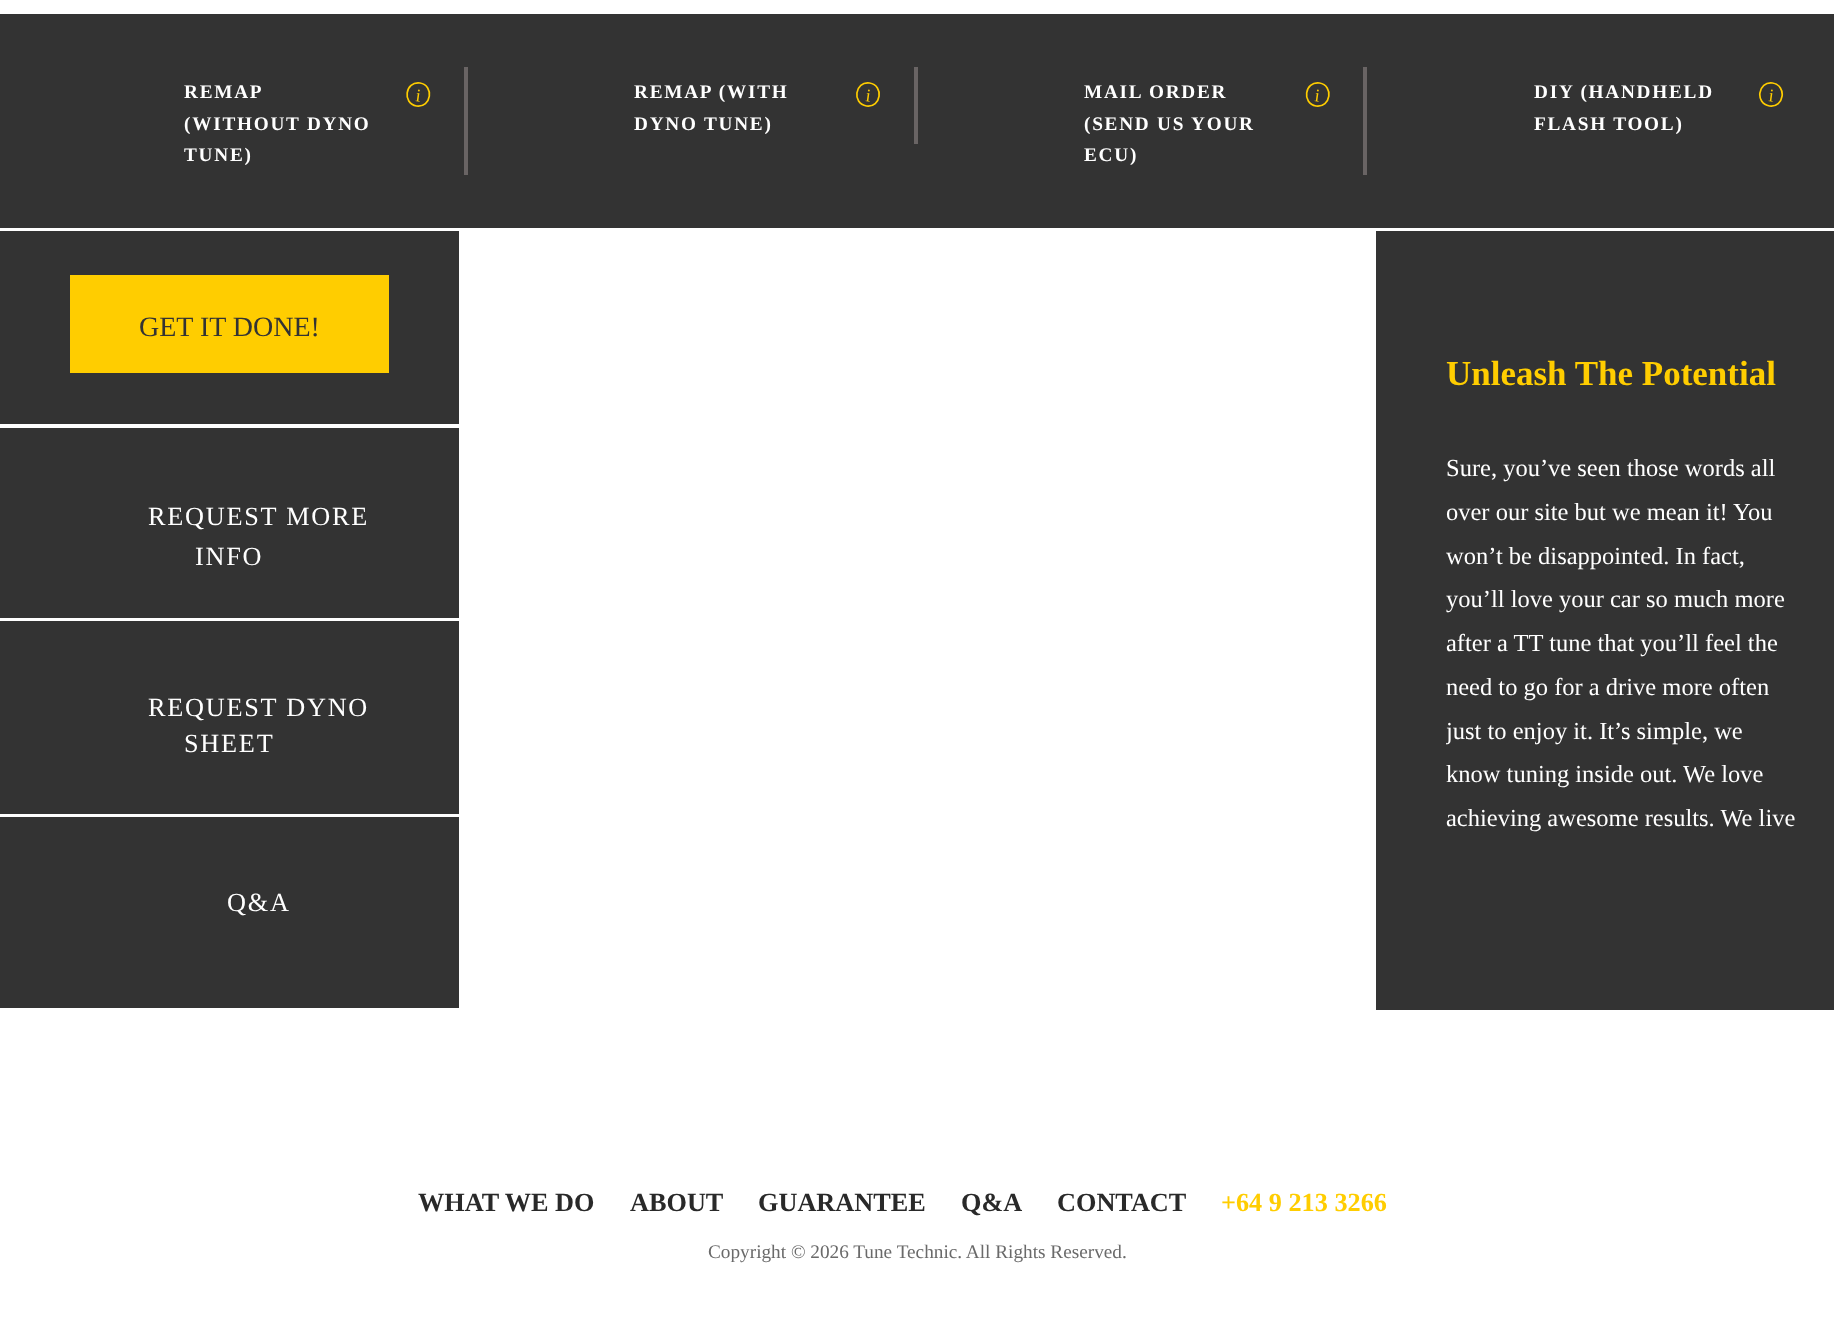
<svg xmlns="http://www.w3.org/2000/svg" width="1834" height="1324">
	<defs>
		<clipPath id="clip1"><rect x="1446" y="319" width="353" height="525" /></clipPath>
	</defs>
	<rect width="100%" height="100%" fill="#FFFFFF" />
	<rect x="0" y="14" width="1834" height="214" fill="#333333" />
	<rect x="464" y="67" width="4" height="108" fill="#696464" />
	<g font-family="Liberation Serif" font-size="19.25" font-weight="700" letter-spacing="1.75" fill="#FFFFFF">
		<text x="184" y="98">REMAP</text>
		<text x="184" y="130">(WITHOUT DYNO</text>
		<text x="184" y="161">TUNE)</text>
	</g>
	<path d="M420 83C434.5 85.5 431.5 108 416.5 106C402 103.5 405 81 420 83Z" fill="none" stroke="#FFCD00" stroke-width="1.7" />
	<text x="415" y="101" transform="rotate(8 415 101)" font-family="Liberation Serif" font-size="18" fill="#FFCD00">i</text>
	<rect x="914" y="67" width="4" height="77" fill="#696464" />
	<g font-family="Liberation Serif" font-size="19.25" font-weight="700" letter-spacing="1.75" fill="#FFFFFF">
		<text x="634" y="98">REMAP (WITH</text>
		<text x="634" y="130">DYNO TUNE)</text>
	</g>
	<path d="M869.5 83C884.5 85.5 881 108 866.5 106C851.5 103.5 855 81 869.5 83Z" fill="none" stroke="#FFCD00" stroke-width="1.7" />
	<text x="865" y="101" transform="rotate(8 865 101)" font-family="Liberation Serif" font-size="18" fill="#FFCD00">i</text>
	<rect x="1363" y="67" width="4" height="108" fill="#696464" />
	<g font-family="Liberation Serif" font-size="19.25" font-weight="700" letter-spacing="1.75" fill="#FFFFFF">
		<text x="1084" y="98">MAIL ORDER</text>
		<text x="1084" y="130">(SEND US YOUR</text>
		<text x="1084" y="161">ECU)</text>
	</g>
	<path d="M1319.5 83C1334 85.5 1331 108 1316 106C1301.5 103.5 1304.5 81 1319.5 83Z" fill="none" stroke="#FFCD00" stroke-width="1.7" />
	<text x="1314" y="101" transform="rotate(8 1314 101)" font-family="Liberation Serif" font-size="18" fill="#FFCD00">i</text>
	<g font-family="Liberation Serif" font-size="19.25" font-weight="700" letter-spacing="1.75" fill="#FFFFFF">
		<text x="1534" y="98">DIY (HANDHELD</text>
		<text x="1534" y="130">FLASH TOOL)</text>
	</g>
	<path d="M1772.5 83C1787.5 85.5 1784 108 1769.5 106C1754.5 103.5 1758 81 1772.5 83Z" fill="none" stroke="#FFCD00" stroke-width="1.7" />
	<text x="1768" y="101" transform="rotate(8 1768 101)" font-family="Liberation Serif" font-size="18" fill="#FFCD00">i</text>
	<rect x="0" y="231" width="459" height="193" fill="#333333" />
	<rect x="70" y="275" width="319" height="98" fill="#FFCD00" />
	<text x="139" y="336" font-family="Liberation Serif" font-size="28" fill="#333333">GET IT DONE!</text>
	<rect x="0" y="428" width="459" height="190" fill="#333333" />
	<g font-family="Liberation Serif" font-size="26.25" letter-spacing="1.75" fill="#FFFFFF">
		<text x="148" y="525">REQUEST MORE</text>
		<text x="195" y="565">INFO</text>
	</g>
	<rect x="0" y="621" width="459" height="193" fill="#333333" />
	<g font-family="Liberation Serif" font-size="26.25" letter-spacing="1.75" fill="#FFFFFF">
		<text x="148" y="716">REQUEST DYNO</text>
		<text x="184" y="752">SHEET</text>
	</g>
	<rect x="0" y="817" width="459" height="191" fill="#333333" />
	<text x="227" y="911" font-family="Liberation Serif" font-size="26.25" letter-spacing="1.75" fill="#FFFFFF">Q&amp;A</text>
	<rect x="1376" y="231" width="458" height="779" fill="#333333" />
	<text x="1446" y="385" font-family="Liberation Serif" font-size="35" font-weight="700" fill="#FFCD00">Unleash The Potential</text>
	<g font-family="Liberation Serif" font-size="24.5" fill="#FFFFFF">
		<text x="1446" y="476">Sure, you’ve seen those words all</text>
		<text x="1446" y="520">over our site but we mean it! You</text>
		<text x="1446" y="564">won’t be disappointed. In fact,</text>
		<text x="1446" y="607">you’ll love your car so much more</text>
		<text x="1446" y="651">after a TT tune that you’ll feel the</text>
		<text x="1446" y="695">need to go for a drive more often</text>
	</g>
	<g clip-path="url(#clip1)">
		<text x="1446" y="739" font-family="Liberation Serif" font-size="24.5" fill="#FFFFFF">just to enjoy it. It’s simple, we</text>
	</g>
	<g font-family="Liberation Serif" font-size="24.5" fill="#FFFFFF">
		<text x="1446" y="782">know tuning inside out. We love</text>
		<text x="1446" y="826">achieving awesome results. We live</text>
	</g>
	<g font-family="Liberation Serif" font-size="26.25" font-weight="700" fill="#292929">
		<text x="418" y="1211">WHAT WE DO</text>
		<text x="630" y="1211">ABOUT</text>
		<text x="758" y="1211">GUARANTEE</text>
		<text x="961" y="1211">Q&amp;A</text>
		<text x="1057" y="1211">CONTACT</text>
	</g>
	<text x="1221" y="1211" font-family="Liberation Serif" font-size="26.25" font-weight="700" fill="#FFCD00">+64 9 213 3266</text>
	<text x="708" y="1258" font-family="Liberation Serif" font-size="19.25" fill="#6A6A6A">Copyright © 2026 Tune Technic. All Rights Reserved.</text>
</svg>
